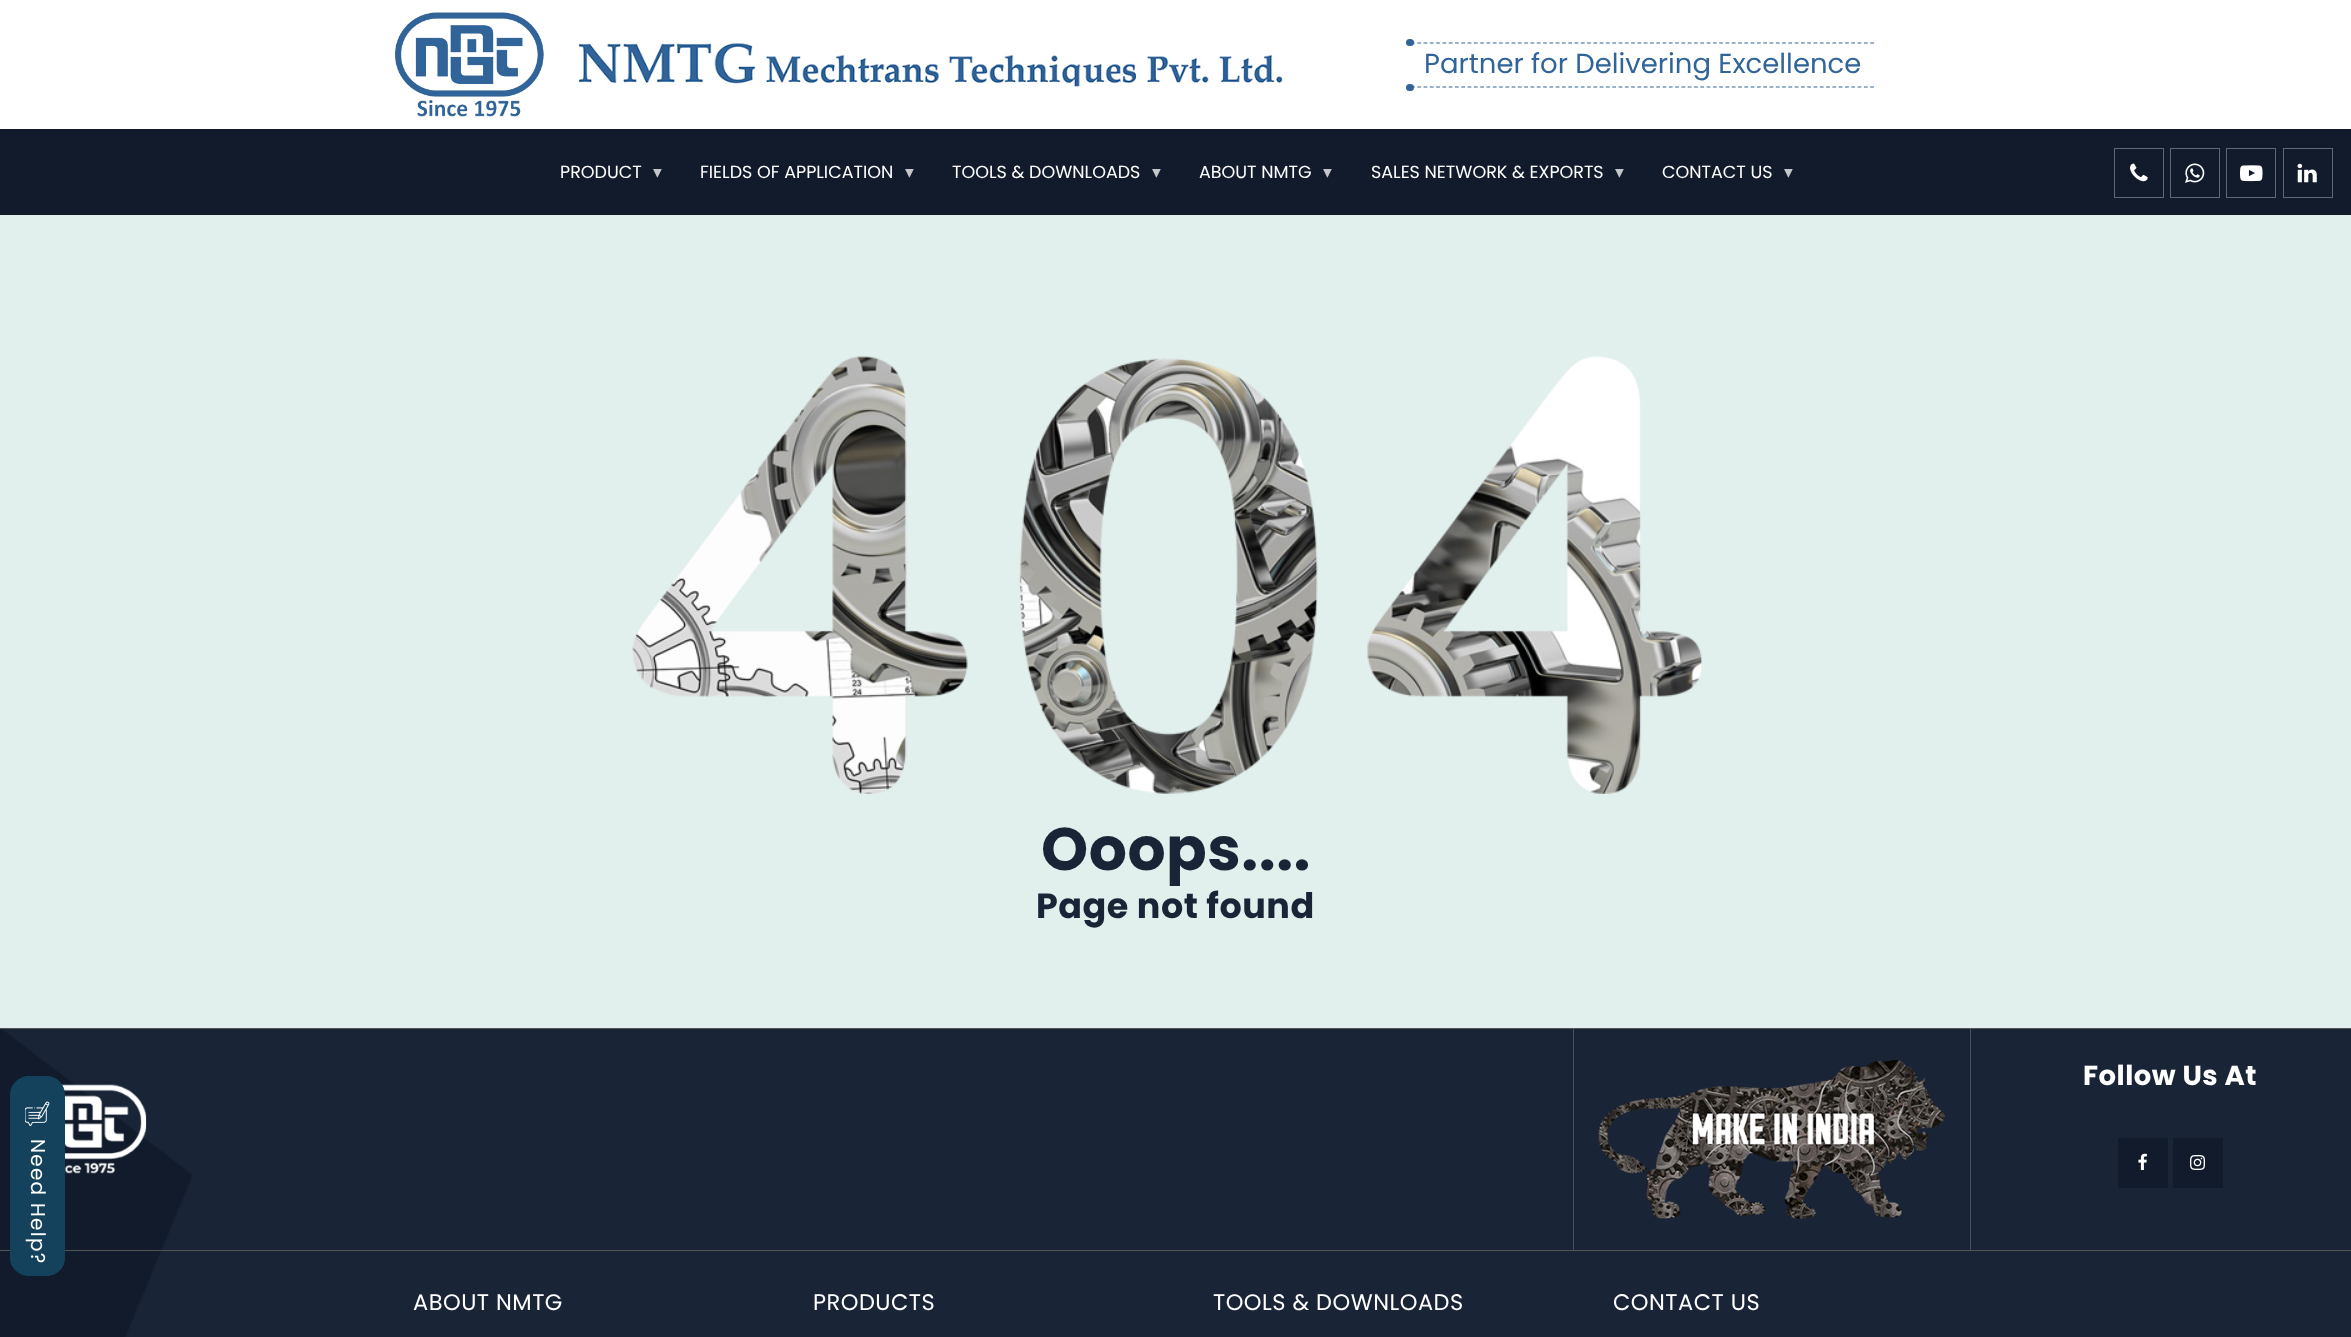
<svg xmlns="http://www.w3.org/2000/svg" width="2351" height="1337">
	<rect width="100%" height="100%" fill="#FFFFFF" />
	<image x="395" y="12" width="149" height="105" href="assets/img1.png" />
	<image x="578" y="43" width="705" height="44" href="assets/img2.png" />
	<path d="M1411 43H1874" fill="none" stroke="#316499" stroke-width="1.2" stroke-dasharray="3.75 2.54" />
	<path d="M1411 87H1874" fill="none" stroke="#316499" stroke-width="1.2" stroke-dasharray="3.75 2.54" />
	<rect x="1406" y="39" width="8" height="7" rx="3.5" fill="#316499" />
	<text x="1424" y="73" font-family="Poppins" font-size="27.5" fill="#316499">Partner for Delivering Excellence</text>
	<rect x="1406" y="84" width="8" height="7" rx="3.5" fill="#316499" />
	<rect x="0" y="129" width="2351" height="86" fill="#121B2B" />
	<text x="560" y="178" font-family="Poppins" font-size="17.5" fill="#FFFFFF">PRODUCT</text>
	<text x="653" y="178" font-family="DejaVu Sans" font-size="17.5" fill="#C4C6CA">▾</text>
	<text x="700" y="178" font-family="Poppins" font-size="17.5" fill="#FFFFFF">FIELDS OF APPLICATION</text>
	<text x="905" y="178" font-family="DejaVu Sans" font-size="17.5" fill="#C4C6CA">▾</text>
	<text x="952" y="178" font-family="Poppins" font-size="17.5" fill="#FFFFFF">TOOLS &amp; DOWNLOADS</text>
	<text x="1152" y="178" font-family="DejaVu Sans" font-size="17.5" fill="#C4C6CA">▾</text>
	<text x="1199" y="178" font-family="Poppins" font-size="17.5" fill="#FFFFFF">ABOUT NMTG</text>
	<text x="1323" y="178" font-family="DejaVu Sans" font-size="17.5" fill="#C4C6CA">▾</text>
	<text x="1371" y="178" font-family="Poppins" font-size="17.5" fill="#FFFFFF">SALES NETWORK &amp; EXPORTS</text>
	<text x="1615" y="178" font-family="DejaVu Sans" font-size="17.5" fill="#C4C6CA">▾</text>
	<text x="1662" y="178" font-family="Poppins" font-size="17.5" fill="#FFFFFF">CONTACT US</text>
	<text x="1784" y="178" font-family="DejaVu Sans" font-size="17.5" fill="#C4C6CA">▾</text>
	<rect x="2114.5" y="148.5" width="49" height="49" fill="none" stroke="#616772" />
	<image x="2130" y="163" width="18" height="19" href="assets/img3.png" />
	<rect x="2170.5" y="148.5" width="49" height="49" fill="none" stroke="#616772" />
	<image x="2185" y="163" width="20" height="20" href="assets/img4.png" />
	<rect x="2226.5" y="148.5" width="49" height="49" fill="none" stroke="#616772" />
	<image x="2240" y="165" width="23" height="17" href="assets/img5.png" />
	<rect x="2283.5" y="148.5" width="49" height="49" fill="none" stroke="#616772" />
	<image x="2297" y="163" width="20" height="20" href="assets/img6.png" />
	<rect x="0" y="215" width="2351" height="813" fill="#E1EFED" />
	<image x="632" y="356" width="1070" height="438" href="assets/img7.png" />
	<text x="1041" y="870" font-family="Poppins" font-size="60" font-weight="700" letter-spacing="0.5" fill="#192437">Ooops....</text>
	<text x="1036" y="918" font-family="Poppins" font-size="35" font-weight="700" letter-spacing="0.5" fill="#192437">Page not found</text>
	<rect x="1" y="1029" width="2350" height="308" fill="#192437" />
	<image x="0" y="1029" width="192" height="308" href="assets/img9.png" />
	<rect x="0" y="1250" width="2351" height="1" fill="#555555" />
	<image x="61" y="1084" width="86" height="90" href="assets/img10.png" />
	<path d="M65 1095V1258C65 1268 57 1276 46 1276H29C19 1276 10 1268 10 1258V1095C10 1084 19 1076 29 1076H46C57 1076 65 1084 65 1095Z" fill="#14425C" />
	<image x="25" y="1101" width="25" height="25" href="assets/img8.png" />
	<text x="31" y="1139" transform="rotate(90 31 1139)" font-family="Poppins" font-size="20" letter-spacing="1.25" fill="#FFFFFF">Need Help?</text>
	<rect x="0" y="1028" width="2351" height="1" fill="#555555" />
	<rect x="1573" y="1029" width="1" height="221" fill="#47505F" />
	<rect x="1970" y="1029" width="1" height="221" fill="#47505F" />
	<image x="1598" y="1060" width="347" height="159" href="assets/img11.png" />
	<text x="2083" y="1085" font-family="Poppins" font-size="27.5" font-weight="700" letter-spacing="0.5" fill="#FFFFFF">Follow Us At</text>
	<rect x="2118" y="1138" width="50" height="50" fill="#121B2B" />
	<image x="2138" y="1153" width="9" height="17" href="assets/img12.png" />
	<rect x="2173" y="1138" width="50" height="50" fill="#121B2B" />
	<image x="2190" y="1155" width="15" height="15" href="assets/img13.png" />
	<g font-family="Poppins" font-size="22.5" letter-spacing="0.5" fill="#FFFFFF">
		<text x="413" y="1310">ABOUT NMTG</text>
		<text x="813" y="1310">PRODUCTS</text>
		<text x="1213" y="1310">TOOLS &amp; DOWNLOADS</text>
		<text x="1613" y="1310">CONTACT US</text>
	</g>
</svg>
